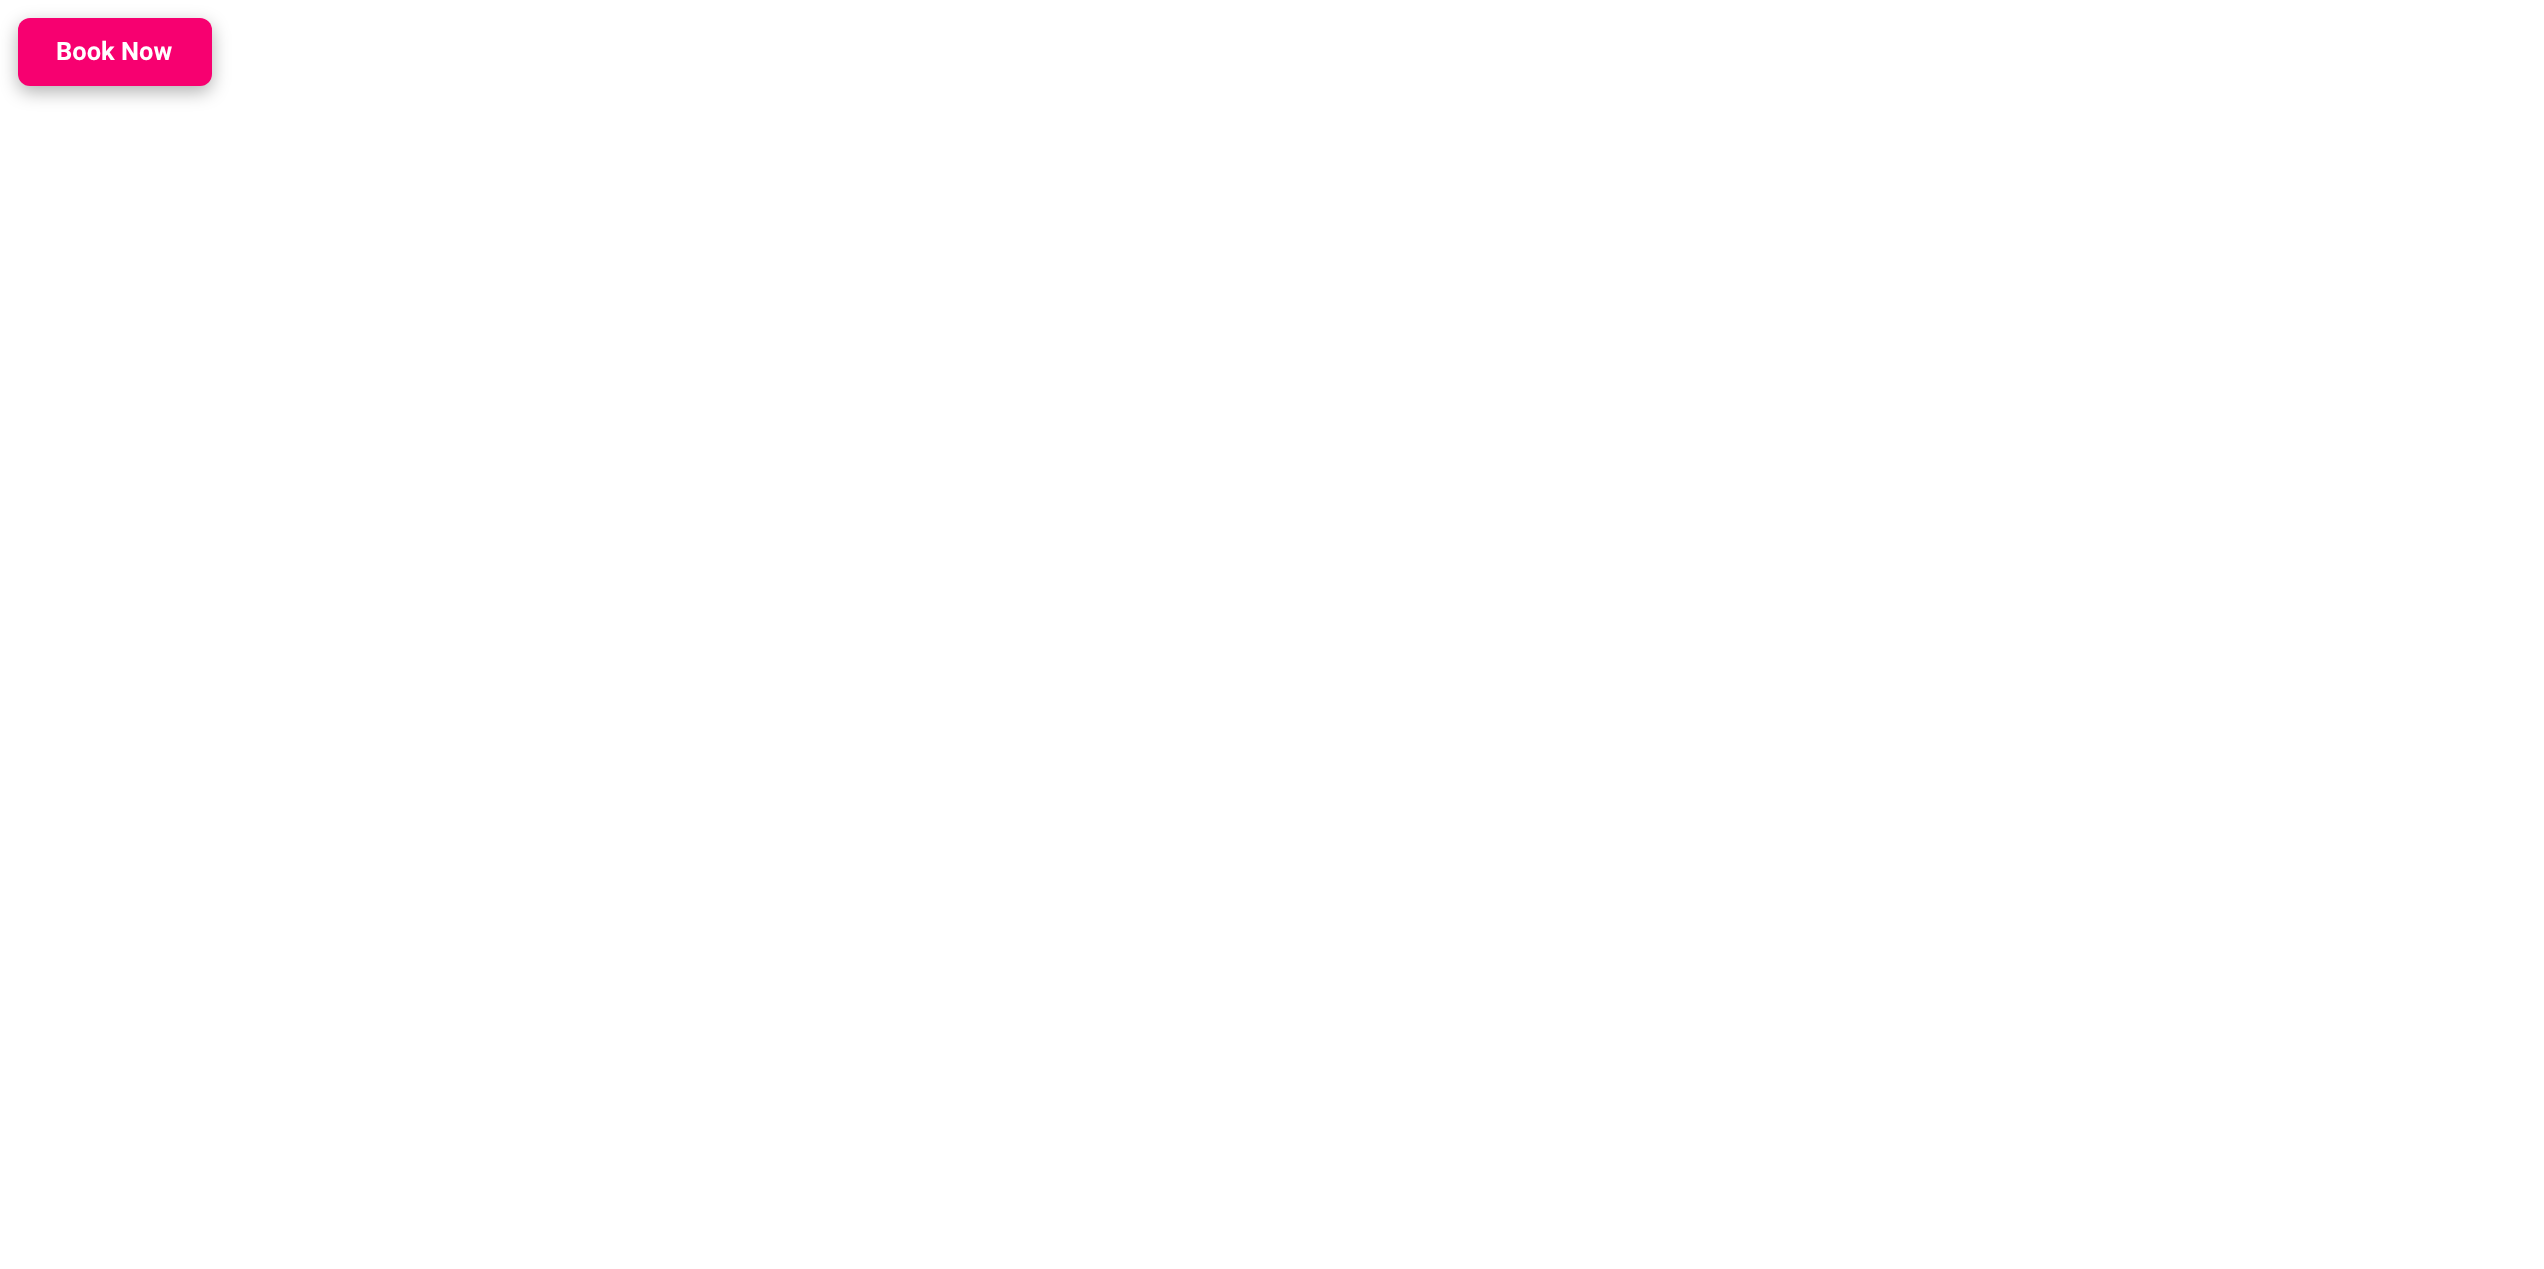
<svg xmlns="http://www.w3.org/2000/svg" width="2544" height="1269">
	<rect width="100%" height="100%" fill="#FFFFFF" />
	<rect x="18" y="24" width="194" height="68" rx="12" fill="#000000" fill-opacity="0.3" filter="blur(9px)" />
	<rect x="18" y="18" width="194" height="68" rx="12" fill="#F70070" />
	<text x="56" y="60" font-family="Roboto" font-size="25.5" font-weight="700" fill="#FFFFFF">Book Now</text>
</svg>
